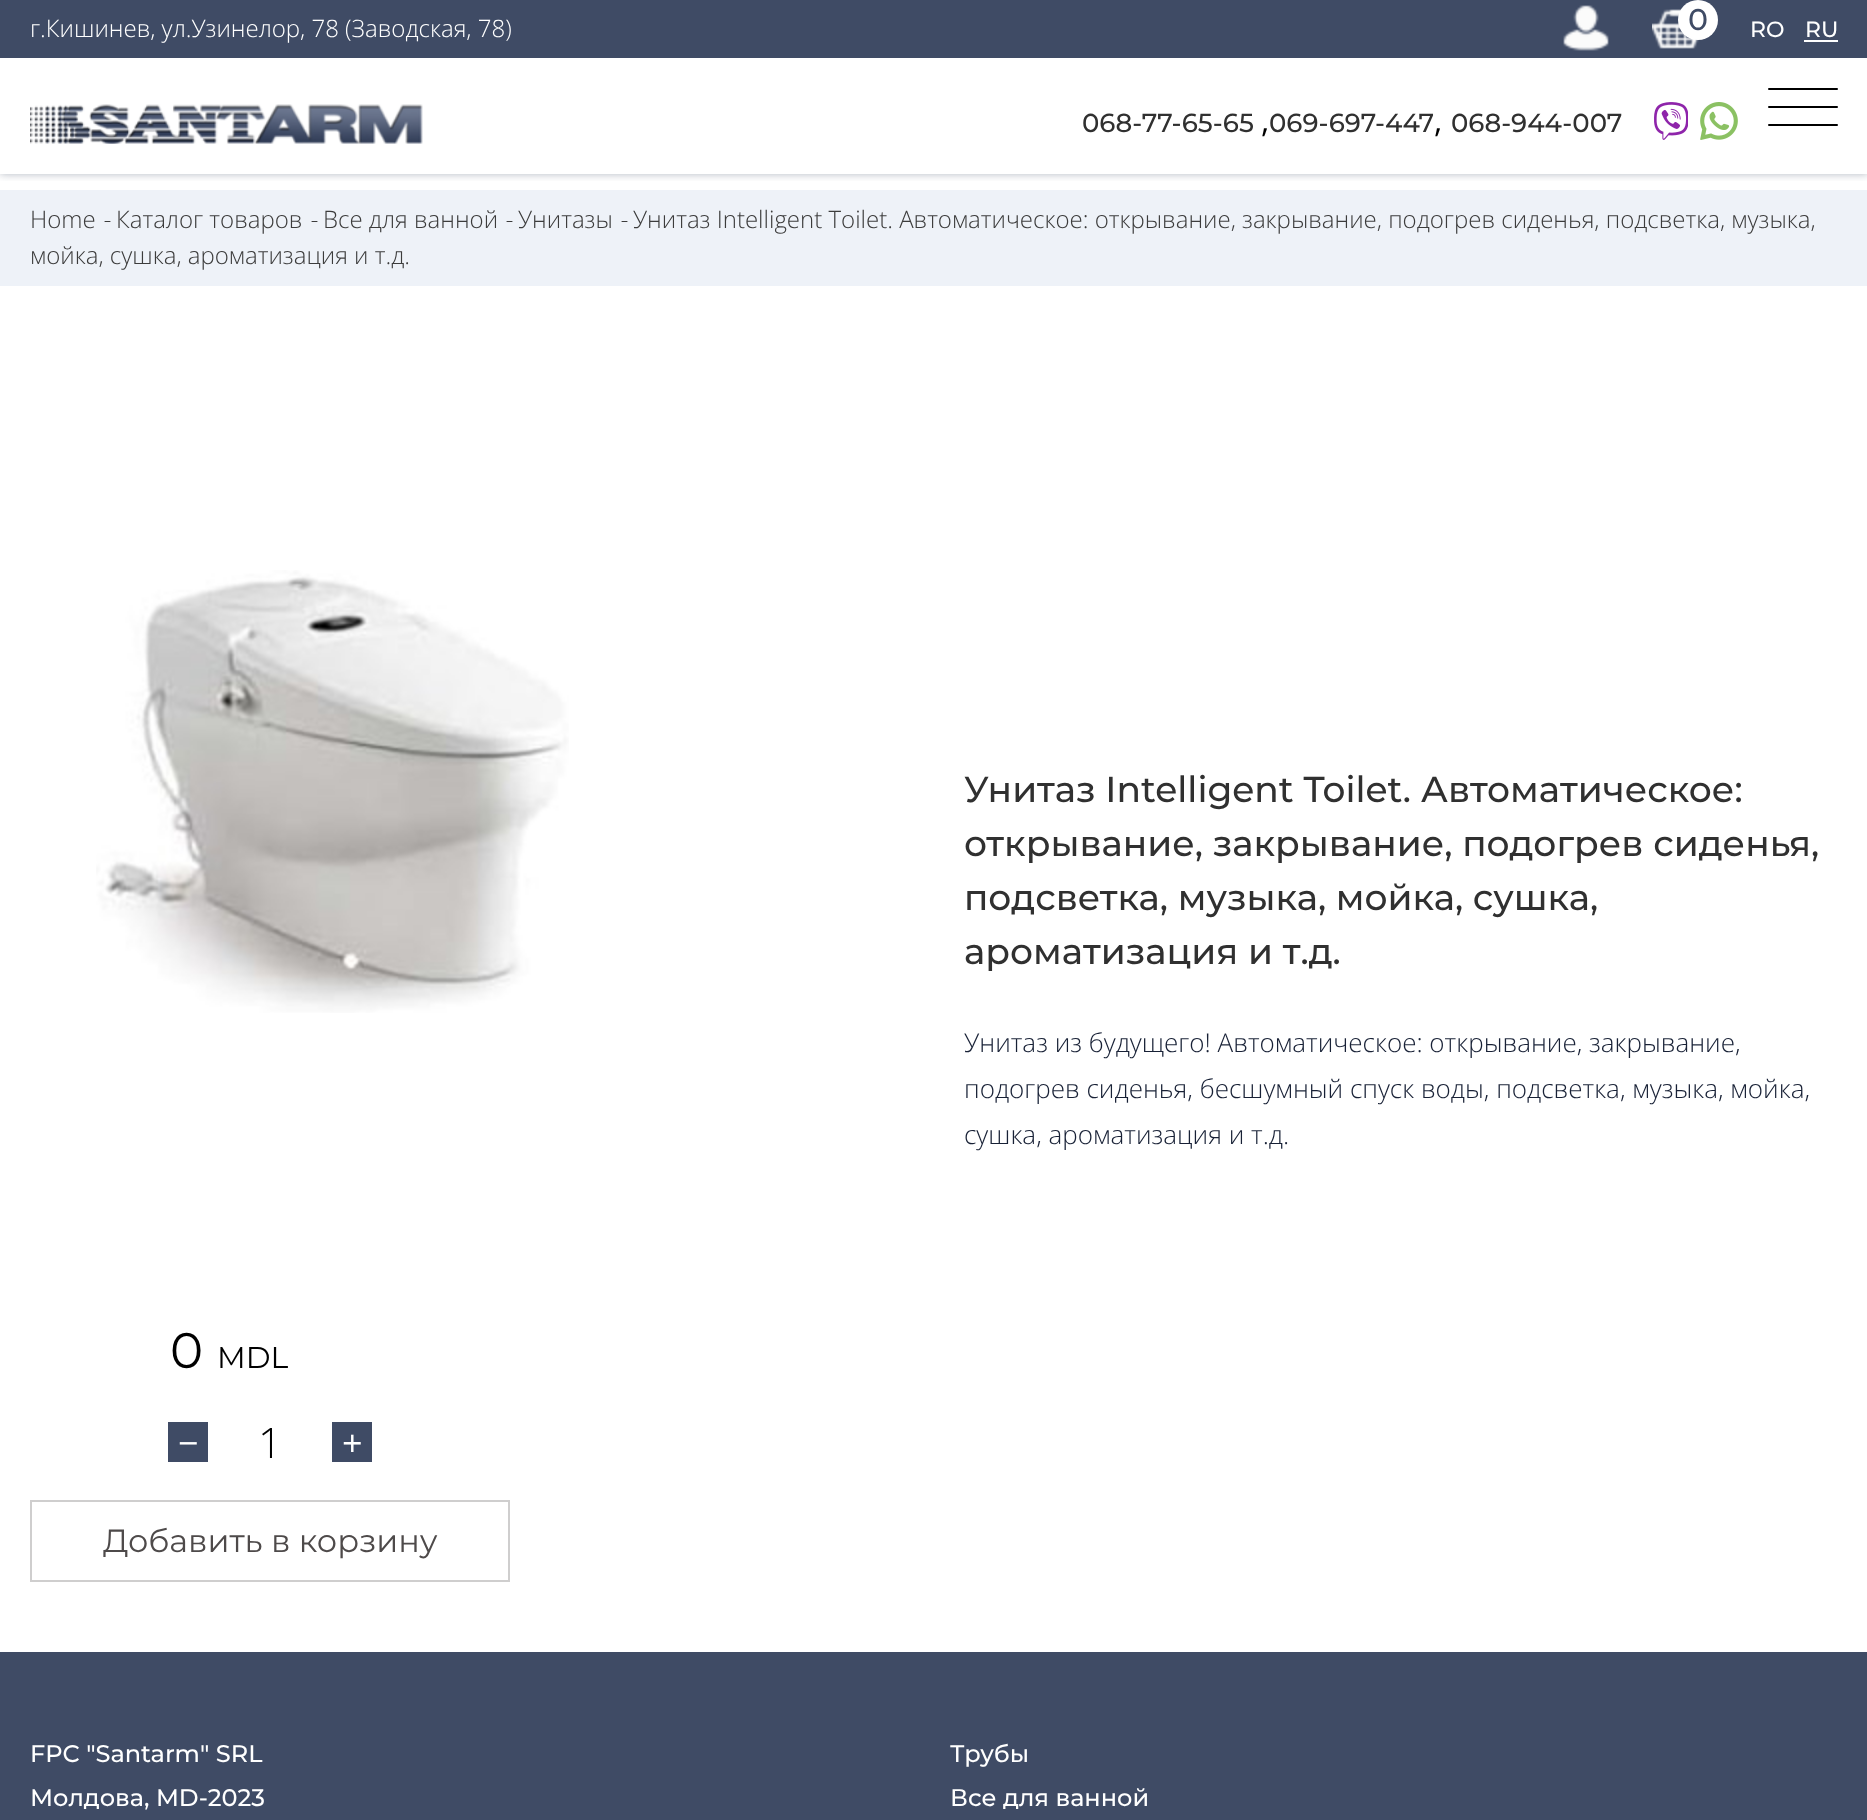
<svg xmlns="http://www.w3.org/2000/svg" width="1867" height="1820">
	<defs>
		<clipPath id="clip1"><rect x="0" y="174" width="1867" height="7" /></clipPath>
	</defs>
	<rect width="100%" height="100%" fill="#FFFFFF" />
	<g clip-path="url(#clip1)">
		<rect x="0" y="0" width="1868" height="174" fill="#3F4B65" fill-opacity="0.4" filter="blur(4px)" />
	</g>
	<rect x="0" y="0" width="1867" height="58" fill="#3F4B65" />
	<text x="30" y="37" font-family="Open Sans" font-size="24" font-weight="300" fill="#FFFFFF">г.Кишинев, ул.Узинелор, 78 (Заводская, 78)</text>
	<image x="1563" y="5" width="46" height="46" href="assets/img1.png" />
	<image x="1652" y="9" width="47" height="40" href="assets/img2.png" />
	<circle cx="1698" cy="20" r="20" fill="#FFFFFF" />
	<text x="1688" y="30" font-family="Montserrat" font-size="30" font-weight="500" fill="#3F4B65">0</text>
	<g font-family="Montserrat" font-size="22" font-weight="500" fill="#FFFFFF">
		<text x="1750" y="37">RO</text>
		<text x="1805" y="37">RU</text>
	</g>
	<rect x="1804" y="40" width="34" height="2" fill="#FFFFFF" />
	<image x="30" y="104" width="393" height="40" href="assets/img3.png" />
	<text x="1082" y="132" font-family="Montserrat" font-size="26" font-weight="500" fill="#303030">068-77-65-65</text>
	<text x="1261" y="132" font-family="Open Sans" font-size="32" fill="#000000">,</text>
	<text x="1269" y="132" font-family="Montserrat" font-size="26" font-weight="500" fill="#303030">069-697-447</text>
	<text x="1434" y="132" font-family="Open Sans" font-size="32" fill="#000000">,</text>
	<text x="1451" y="132" font-family="Montserrat" font-size="26" font-weight="500" fill="#303030">068-944-007</text>
	<image x="1654" y="102" width="34" height="38" href="assets/img4.png" />
	<image x="1700" y="102" width="38" height="38" href="assets/img5.png" />
	<rect x="1768" y="106" width="70" height="2" rx="1" fill="#000000" />
	<rect x="1768" y="88" width="70" height="2" rx="1" fill="#000000" />
	<rect x="1768" y="124" width="70" height="2" rx="1" fill="#000000" />
	<rect x="0" y="190" width="1867" height="96" fill="#EEF2F8" />
	<text x="30" y="228" font-family="Open Sans" font-size="24" font-weight="300" fill="#3C3C3C">Home</text>
	<text x="102" y="228" font-family="Open Sans" font-size="24" font-weight="300" font-style="italic" fill="#3C3C3C">-</text>
	<text x="116" y="228" font-family="Open Sans" font-size="24" font-weight="300" fill="#3C3C3C">Каталог товаров</text>
	<text x="309" y="228" font-family="Open Sans" font-size="24" font-weight="300" font-style="italic" fill="#3C3C3C">-</text>
	<text x="323" y="228" font-family="Open Sans" font-size="24" font-weight="300" fill="#3C3C3C">Все для ванной</text>
	<text x="504" y="228" font-family="Open Sans" font-size="24" font-weight="300" font-style="italic" fill="#3C3C3C">-</text>
	<text x="518" y="228" font-family="Open Sans" font-size="24" font-weight="300" fill="#3C3C3C">Унитазы</text>
	<text x="619" y="228" font-family="Open Sans" font-size="24" font-weight="300" font-style="italic" fill="#3C3C3C">-</text>
	<g font-family="Open Sans" font-size="24" font-weight="300" fill="#3C3C3C">
		<text x="633" y="228">Унитаз Intelligent Toilet. Автоматическое: открывание, закрывание, подогрев сиденья, подсветка, музыка,</text>
		<text x="30" y="264">мойка, сушка, ароматизация и т.д.</text>
	</g>
	<g font-family="Montserrat" font-size="36" font-weight="500" fill="#303030">
		<text x="964" y="802">Унитаз Intelligent Toilet. Автоматическое:</text>
		<text x="964" y="856">открывание, закрывание, подогрев сиденья,</text>
		<text x="964" y="910">подсветка, музыка, мойка, сушка,</text>
		<text x="964" y="964">ароматизация и т.д.</text>
	</g>
	<g font-family="Open Sans" font-size="26" font-weight="300" fill="#182136">
		<text x="964" y="1052">Унитаз из будущего! Автоматическое: открывание, закрывание,</text>
		<text x="964" y="1098">подогрев сиденья, бесшумный спуск воды, подсветка, музыка, мойка,</text>
		<text x="964" y="1144">сушка, ароматизация и т.д.</text>
	</g>
	<image x="96" y="570" width="473" height="443" href="assets/img6.png" />
	<text x="170" y="1368" font-family="Montserrat" font-size="50" fill="#000000">0</text>
	<text x="217" y="1368" font-family="Montserrat" font-size="30" fill="#000000">MDL</text>
	<rect x="168" y="1422" width="40" height="40" fill="#3F4B65" />
	<text x="178" y="1456" font-family="Open Sans" font-size="36" fill="#FFFFFF">−</text>
	<text x="258" y="1458" font-family="Open Sans" font-size="42" font-weight="300" fill="#000000">1</text>
	<rect x="332" y="1422" width="40" height="40" fill="#3F4B65" />
	<text x="342" y="1456" font-family="Open Sans" font-size="36" fill="#FFFFFF">+</text>
	<rect x="31" y="1501" width="478" height="80" fill="none" stroke="#CFCECE" stroke-width="2" />
	<text x="103" y="1552" font-family="Montserrat" font-size="32" fill="#4E4A4A">Добавить в корзину</text>
	<rect x="0" y="1652" width="1867" height="168" fill="#3F4B65" />
	<g font-family="Montserrat" font-size="24" font-weight="500" fill="#FFFFFF">
		<text x="30" y="1762">FPC "Santarm" SRL</text>
		<text x="30" y="1806">Молдова, MD-2023</text>
		<text x="950" y="1762">Трубы</text>
		<text x="950" y="1806">Все для ванной</text>
	</g>
</svg>
